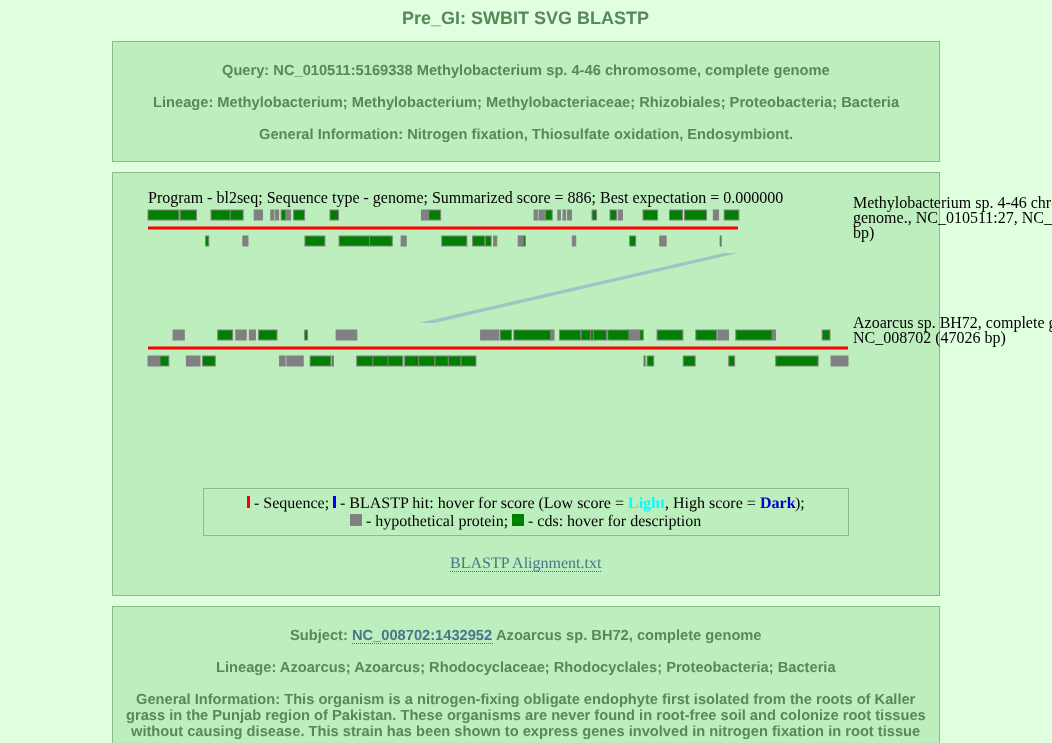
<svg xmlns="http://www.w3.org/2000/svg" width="1052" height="743">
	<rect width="100%" height="100%" fill="#DFFFDF" />
	<text x="402" y="24" font-family="Liberation Sans" font-size="18" font-weight="700" fill="#578857">Pre_GI: SWBIT SVG BLASTP</text>
	<rect x="112.5" y="41.5" width="827" height="120" fill="#BDEEBD" stroke="#8ABB8A" />
	<g font-family="Liberation Sans" font-size="14.67" font-weight="700" fill="#578857">
		<text x="222" y="75">Query: NC_010511:5169338 Methylobacterium sp. 4-46 chromosome, complete genome</text>
		<text x="153" y="107">Lineage: Methylobacterium; Methylobacterium; Methylobacteriaceae; Rhizobiales; Proteobacteria; Bacteria</text>
		<text x="259" y="139">General Information: Nitrogen fixation, Thiosulfate oxidation, Endosymbiont.</text>
	</g>
	<rect x="112.5" y="172.5" width="827" height="423" fill="#BDEEBD" stroke="#8ABB8A" />
	<image x="147" y="191" width="905" height="176" href="assets/img1.png" />
	<rect x="203.5" y="488.5" width="645" height="47" fill="none" stroke="#8ABB8A" />
	<rect x="247" y="496" width="3" height="12" fill="#FF0000" />
	<text x="254" y="508" font-family="Liberation Serif" font-size="16" fill="#000000">- Sequence;</text>
	<rect x="333" y="496" width="3" height="12" fill="#0000FF" />
	<text x="340" y="508" font-family="Liberation Serif" font-size="16" fill="#000000">- BLASTP hit: hover for score (Low score =</text>
	<text x="628" y="508" font-family="Liberation Serif" font-size="16" font-weight="700" fill="#00FFFF">Light</text>
	<text x="665" y="508" font-family="Liberation Serif" font-size="16" fill="#000000">, High score =</text>
	<text x="760" y="508" font-family="Liberation Serif" font-size="16" font-weight="700" fill="#0000CC">Dark</text>
	<text x="795" y="508" font-family="Liberation Serif" font-size="16" fill="#000000">);</text>
	<rect x="350" y="514" width="12" height="12" fill="#808080" />
	<text x="366" y="526" font-family="Liberation Serif" font-size="16" fill="#000000">- hypothetical protein;</text>
	<rect x="512" y="514" width="12" height="12" fill="#008000" />
	<text x="528" y="526" font-family="Liberation Serif" font-size="16" fill="#000000">- cds: hover for description</text>
	<path d="M450 571.5H602" fill="none" stroke="#46778A" stroke-dasharray="1 1" />
	<text x="450" y="568" font-family="Liberation Serif" font-size="16" fill="#46778A">BLASTP Alignment.txt</text>
	<rect x="112.5" y="606.5" width="827" height="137" fill="#BDEEBD" stroke="#8ABB8A" />
	<text x="290" y="640" font-family="Liberation Sans" font-size="14.67" font-weight="700" fill="#578857">Subject:</text>
	<text x="352" y="640" font-family="Liberation Sans" font-size="14.67" font-weight="700" fill="#46778A">NC_008702:1432952</text>
	<path d="M352 643.5H493" fill="none" stroke="#46778A" stroke-dasharray="1 1" />
	<g font-family="Liberation Sans" font-size="14.67" font-weight="700" fill="#578857">
		<text x="496" y="640">Azoarcus sp. BH72, complete genome</text>
		<text x="216" y="672">Lineage: Azoarcus; Azoarcus; Rhodocyclaceae; Rhodocyclales; Proteobacteria; Bacteria</text>
		<text x="136" y="704">General Information: This organism is a nitrogen-fixing obligate endophyte first isolated from the roots of Kaller</text>
		<text x="126" y="720">grass in the Punjab region of Pakistan. These organisms are never found in root-free soil and colonize root tissues</text>
		<text x="131" y="736">without causing disease. This strain has been shown to express genes involved in nitrogen fixation in root tissue</text>
	</g>
</svg>
